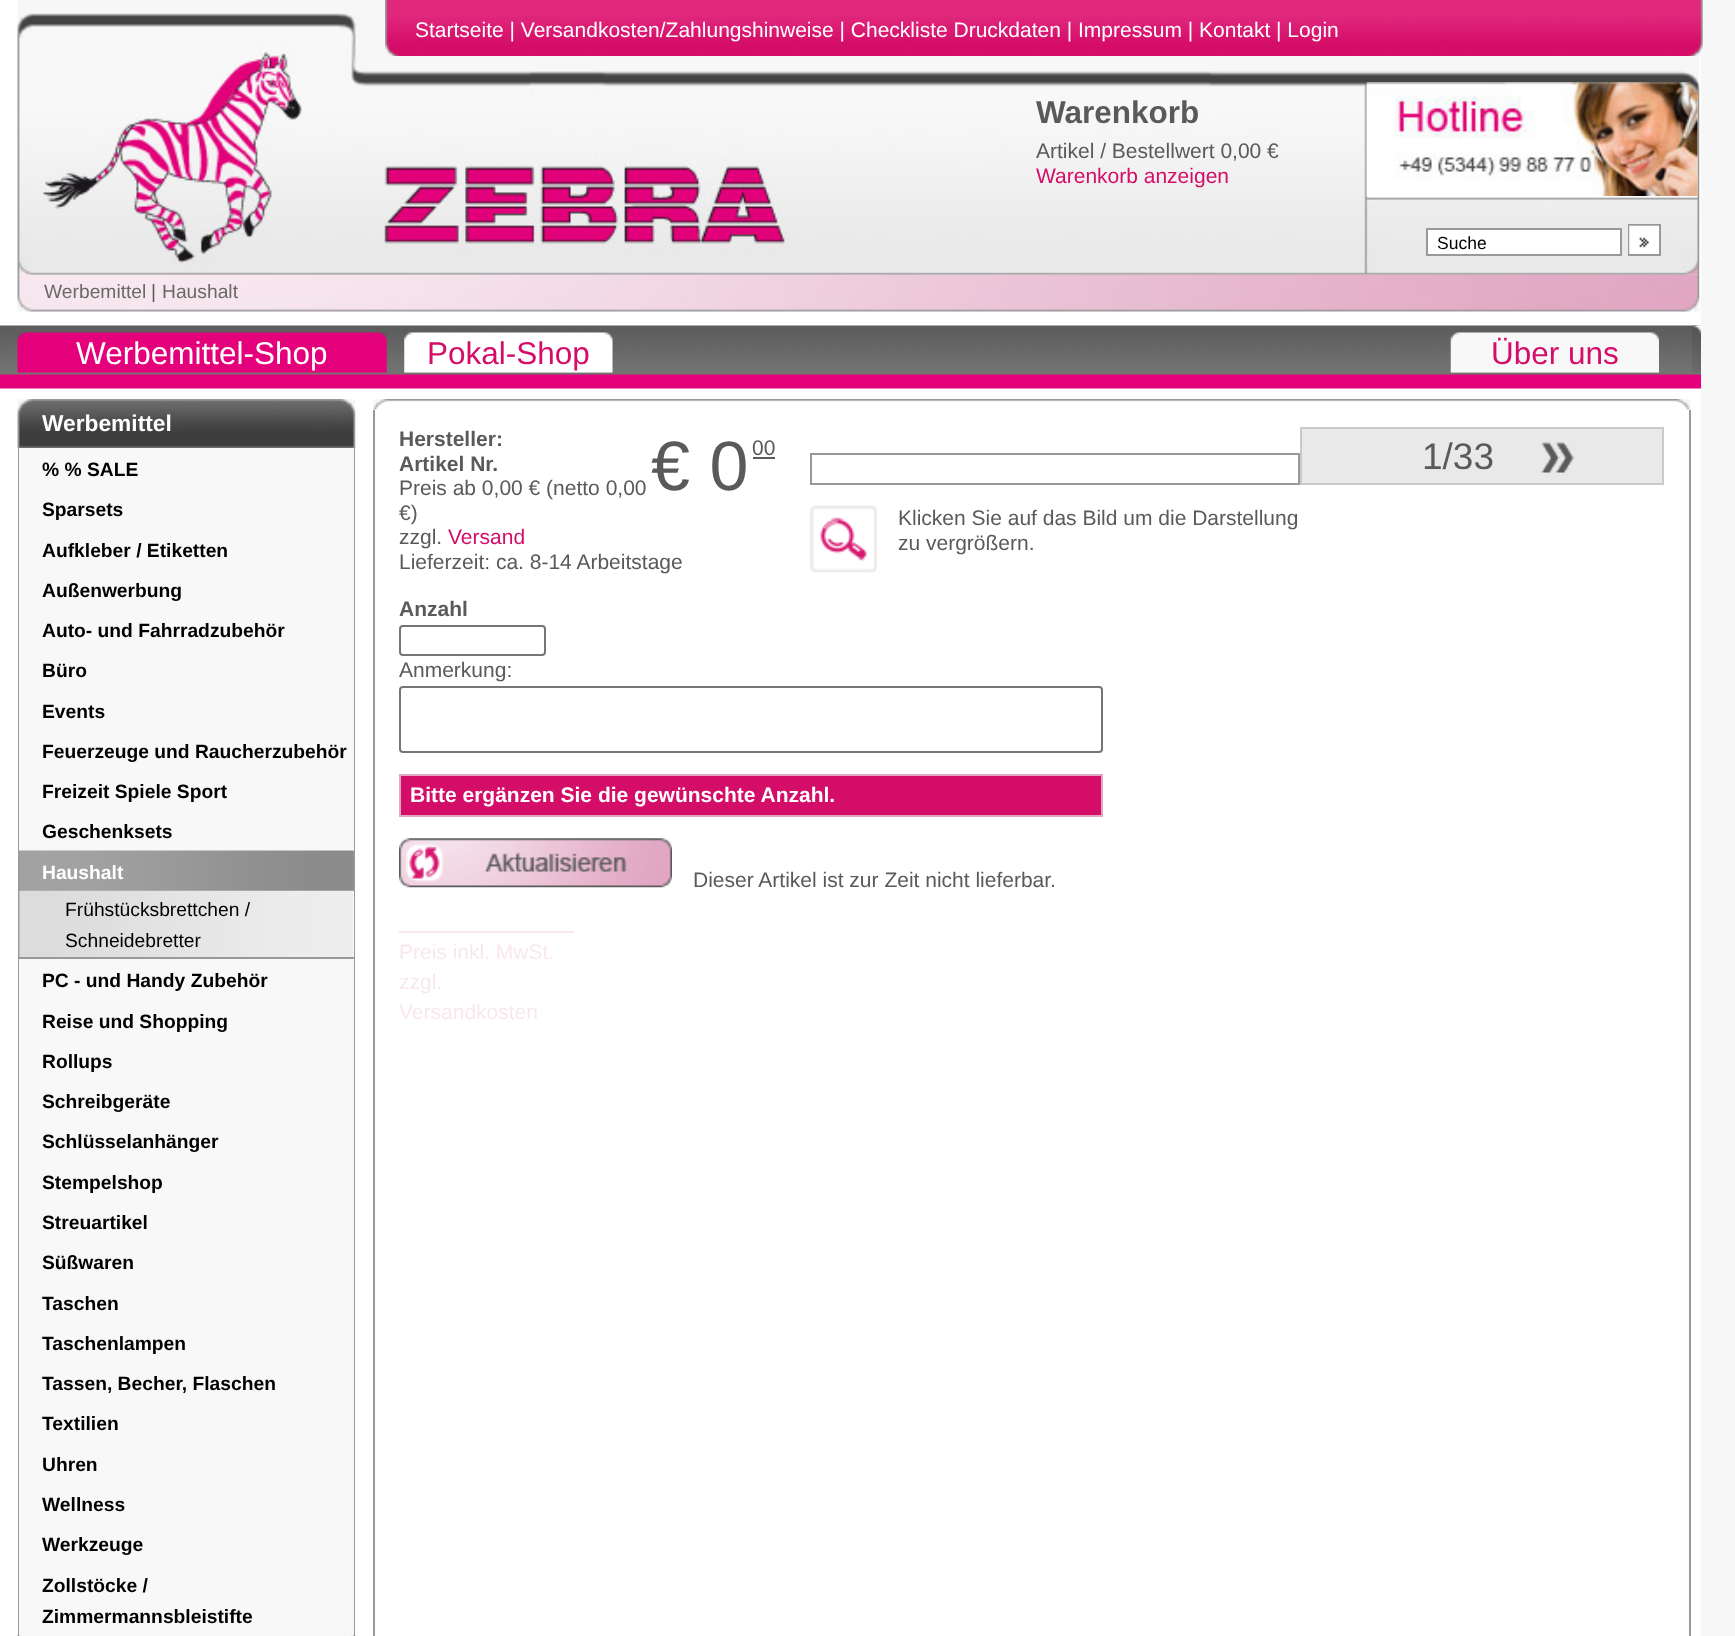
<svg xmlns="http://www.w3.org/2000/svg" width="1735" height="1636">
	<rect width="100%" height="100%" fill="#F7F7F7" />
	<rect x="0" y="0" width="1701" height="1636" fill="#FFFFFF" />
	<image x="17" y="0" width="1683" height="275" href="assets/img1.png" />
	<image x="385" y="0" width="1318" height="56" href="assets/img2.png" />
	<text x="415" y="37" font-family="Liberation Sans" font-size="21" fill="#FFFFFF">Startseite | Versandkosten/Zahlungshinweise | Checkliste Druckdaten | Impressum | Kontakt | Login</text>
	<text x="1036" y="123" font-family="Liberation Sans" font-size="31.5" font-weight="700" fill="#5A5A5A">Warenkorb</text>
	<text x="1036" y="158" font-family="Liberation Sans" font-size="21" fill="#5A5A5A">Artikel / Bestellwert 0,00 €</text>
	<text x="1036" y="183" font-family="Liberation Sans" font-size="21" fill="#D40D68">Warenkorb anzeigen</text>
	<image x="1366" y="82" width="332" height="114" href="assets/img3.png" />
	<rect x="1427" y="229" width="194" height="26" fill="#FFFFFF" stroke="#999999" stroke-width="2" />
	<text x="1437" y="249" font-family="Liberation Sans" font-size="17.5" fill="#000000">Suche</text>
	<rect x="1629" y="225" width="31" height="30" fill="none" stroke="#999999" stroke-width="2" />
	<image x="1629" y="225" width="30" height="29" href="assets/img4.png" />
	<image x="17" y="274" width="1683" height="38" href="assets/img5.png" />
	<text x="44" y="298" font-family="Liberation Sans" font-size="19.25" fill="#696969">Werbemittel</text>
	<text x="151" y="298" font-family="Liberation Sans" font-size="19.25" fill="#5A5A5A">|</text>
	<text x="162" y="298" font-family="Liberation Sans" font-size="19.25" fill="#696969">Haushalt</text>
	<image x="0" y="325" width="1701" height="64" href="assets/img6.png" />
	<image x="1692" y="325" width="9" height="48" href="assets/img7.png" />
	<image x="17" y="332" width="370" height="41" href="assets/img8.png" />
	<text x="76" y="364" font-family="Liberation Sans" font-size="31.5" fill="#FFFFFF">Werbemittel-Shop</text>
	<image x="404" y="332" width="209" height="41" href="assets/img9.png" />
	<text x="427" y="364" font-family="Liberation Sans" font-size="31.5" fill="#D40D68">Pokal-Shop</text>
	<image x="1450" y="332" width="209" height="41" href="assets/img10.png" />
	<text x="1491" y="364" font-family="Liberation Sans" font-size="31.5" fill="#D40D68">Über uns</text>
	<image x="17" y="399" width="339" height="49" href="assets/img11.png" />
	<text x="42" y="431" font-family="Liberation Sans" font-size="22.75" font-weight="700" fill="#FFFFFF">Werbemittel</text>
	<image x="17" y="1634" width="339" height="2" href="assets/img14.png" />
	<rect x="354" y="448" width="1" height="1187" fill="#999999" />
	<rect x="18" y="448" width="2" height="1187" fill="#999999" />
	<rect x="19" y="448" width="335" height="403" fill="#F8F8F8" />
	<g font-family="Liberation Sans" font-size="19.25" font-weight="700" fill="#000000">
		<text x="42" y="476">% % SALE</text>
		<text x="42" y="516">Sparsets</text>
		<text x="42" y="557">Aufkleber / Etiketten</text>
		<text x="42" y="597">Außenwerbung</text>
		<text x="42" y="637">Auto- und Fahrradzubehör</text>
		<text x="42" y="677">Büro</text>
		<text x="42" y="718">Events</text>
		<text x="42" y="758">Feuerzeuge und Raucherzubehör</text>
		<text x="42" y="798">Freizeit Spiele Sport</text>
		<text x="42" y="838">Geschenksets</text>
	</g>
	<rect x="20" y="851" width="334" height="40" fill="#999999" />
	<image x="19" y="850" width="335" height="41" href="assets/img12.png" />
	<text x="42" y="879" font-family="Liberation Sans" font-size="19.25" font-weight="700" fill="#FFFFFF">Haushalt</text>
	<image x="19" y="890" width="335" height="67" href="assets/img13.png" />
	<rect x="19" y="957" width="335" height="2" fill="#999999" />
	<g font-family="Liberation Sans" font-size="19.25" fill="#000000">
		<text x="65" y="916">Frühstücksbrettchen /</text>
		<text x="65" y="947">Schneidebretter</text>
	</g>
	<rect x="19" y="959" width="335" height="676" fill="#F8F8F8" />
	<g font-family="Liberation Sans" font-size="19.25" font-weight="700" fill="#000000">
		<text x="42" y="987">PC - und Handy Zubehör</text>
		<text x="42" y="1028">Reise und Shopping</text>
		<text x="42" y="1068">Rollups</text>
		<text x="42" y="1108">Schreibgeräte</text>
		<text x="42" y="1148">Schlüsselanhänger</text>
		<text x="42" y="1189">Stempelshop</text>
		<text x="42" y="1229">Streuartikel</text>
		<text x="42" y="1269">Süßwaren</text>
		<text x="42" y="1310">Taschen</text>
		<text x="42" y="1350">Taschenlampen</text>
		<text x="42" y="1390">Tassen, Becher, Flaschen</text>
		<text x="42" y="1430">Textilien</text>
		<text x="42" y="1471">Uhren</text>
		<text x="42" y="1511">Wellness</text>
		<text x="42" y="1551">Werkzeuge</text>
		<text x="42" y="1592">Zollstöcke /</text>
		<text x="42" y="1623">Zimmermannsbleistifte</text>
	</g>
	<image x="372" y="399" width="1319" height="11" href="assets/img15.png" />
	<rect x="1689" y="410" width="2" height="1226" fill="#999999" />
	<rect x="373" y="410" width="2" height="1226" fill="#999999" />
	<g font-family="Liberation Sans" font-size="21" font-weight="700" fill="#5A5A5A">
		<text x="399" y="446">Hersteller:</text>
		<text x="399" y="471">Artikel Nr.</text>
	</g>
	<g font-family="Liberation Sans" font-size="21" fill="#5A5A5A">
		<text x="399" y="495">Preis ab 0,00 € (netto 0,00</text>
		<text x="399" y="520">€)</text>
		<text x="399" y="544">zzgl.</text>
	</g>
	<text x="448" y="544" font-family="Liberation Sans" font-size="21" fill="#D40D68">Versand</text>
	<text x="399" y="569" font-family="Liberation Sans" font-size="21" fill="#5A5A5A">Lieferzeit: ca. 8-14 Arbeitstage</text>
	<text x="651" y="490" font-family="Liberation Sans" font-size="70" fill="#5A5A5A">€ 0</text>
	<text x="752" y="455" font-family="Liberation Sans" font-size="21" fill="#5A5A5A">00</text>
	<rect x="753" y="457" width="22" height="2" fill="#5A5A5A" />
	<rect x="1301" y="428" width="362" height="56" fill="#E9E9E9" stroke="#C9C9C9" stroke-width="2" />
	<text x="1422" y="469" font-family="Liberation Sans" font-size="37" fill="#5A5A5A">1/33</text>
	<image x="1541" y="442" width="33" height="31" href="assets/img16.png" />
	<rect x="811" y="454" width="488" height="30" fill="none" stroke="#999999" stroke-width="2" />
	<image x="810" y="505" width="67" height="68" href="assets/img17.png" />
	<g font-family="Liberation Sans" font-size="21" fill="#5A5A5A">
		<text x="898" y="525">Klicken Sie auf das Bild um die Darstellung</text>
		<text x="898" y="550">zu vergrößern.</text>
	</g>
	<text x="399" y="616" font-family="Liberation Sans" font-size="21" font-weight="700" fill="#5A5A5A">Anzahl</text>
	<rect x="400" y="626" width="145" height="29" rx="3" fill="none" stroke="#767676" stroke-width="2" />
	<text x="399" y="677" font-family="Liberation Sans" font-size="21" fill="#5A5A5A">Anmerkung:</text>
	<rect x="400" y="687" width="702" height="65" rx="3" fill="none" stroke="#767676" stroke-width="2" />
	<rect x="400" y="775" width="702" height="41" fill="#D40D68" stroke="#E1A6C2" stroke-width="2" />
	<text x="410" y="802" font-family="Liberation Sans" font-size="21" font-weight="700" fill="#FFFFFF">Bitte ergänzen Sie die gewünschte Anzahl.</text>
	<image x="399" y="838" width="273" height="50" href="assets/img18.png" />
	<text x="693" y="887" font-family="Liberation Sans" font-size="21" fill="#5A5A5A">Dieser Artikel ist zur Zeit nicht lieferbar.</text>
	<rect x="399" y="931" width="175" height="2" fill="#F7E8EF" />
	<g font-family="Liberation Sans" font-size="21" fill="#F7E8EF">
		<text x="399" y="959">Preis inkl. MwSt.</text>
		<text x="399" y="989">zzgl.</text>
		<text x="399" y="1019">Versandkosten</text>
	</g>
</svg>
